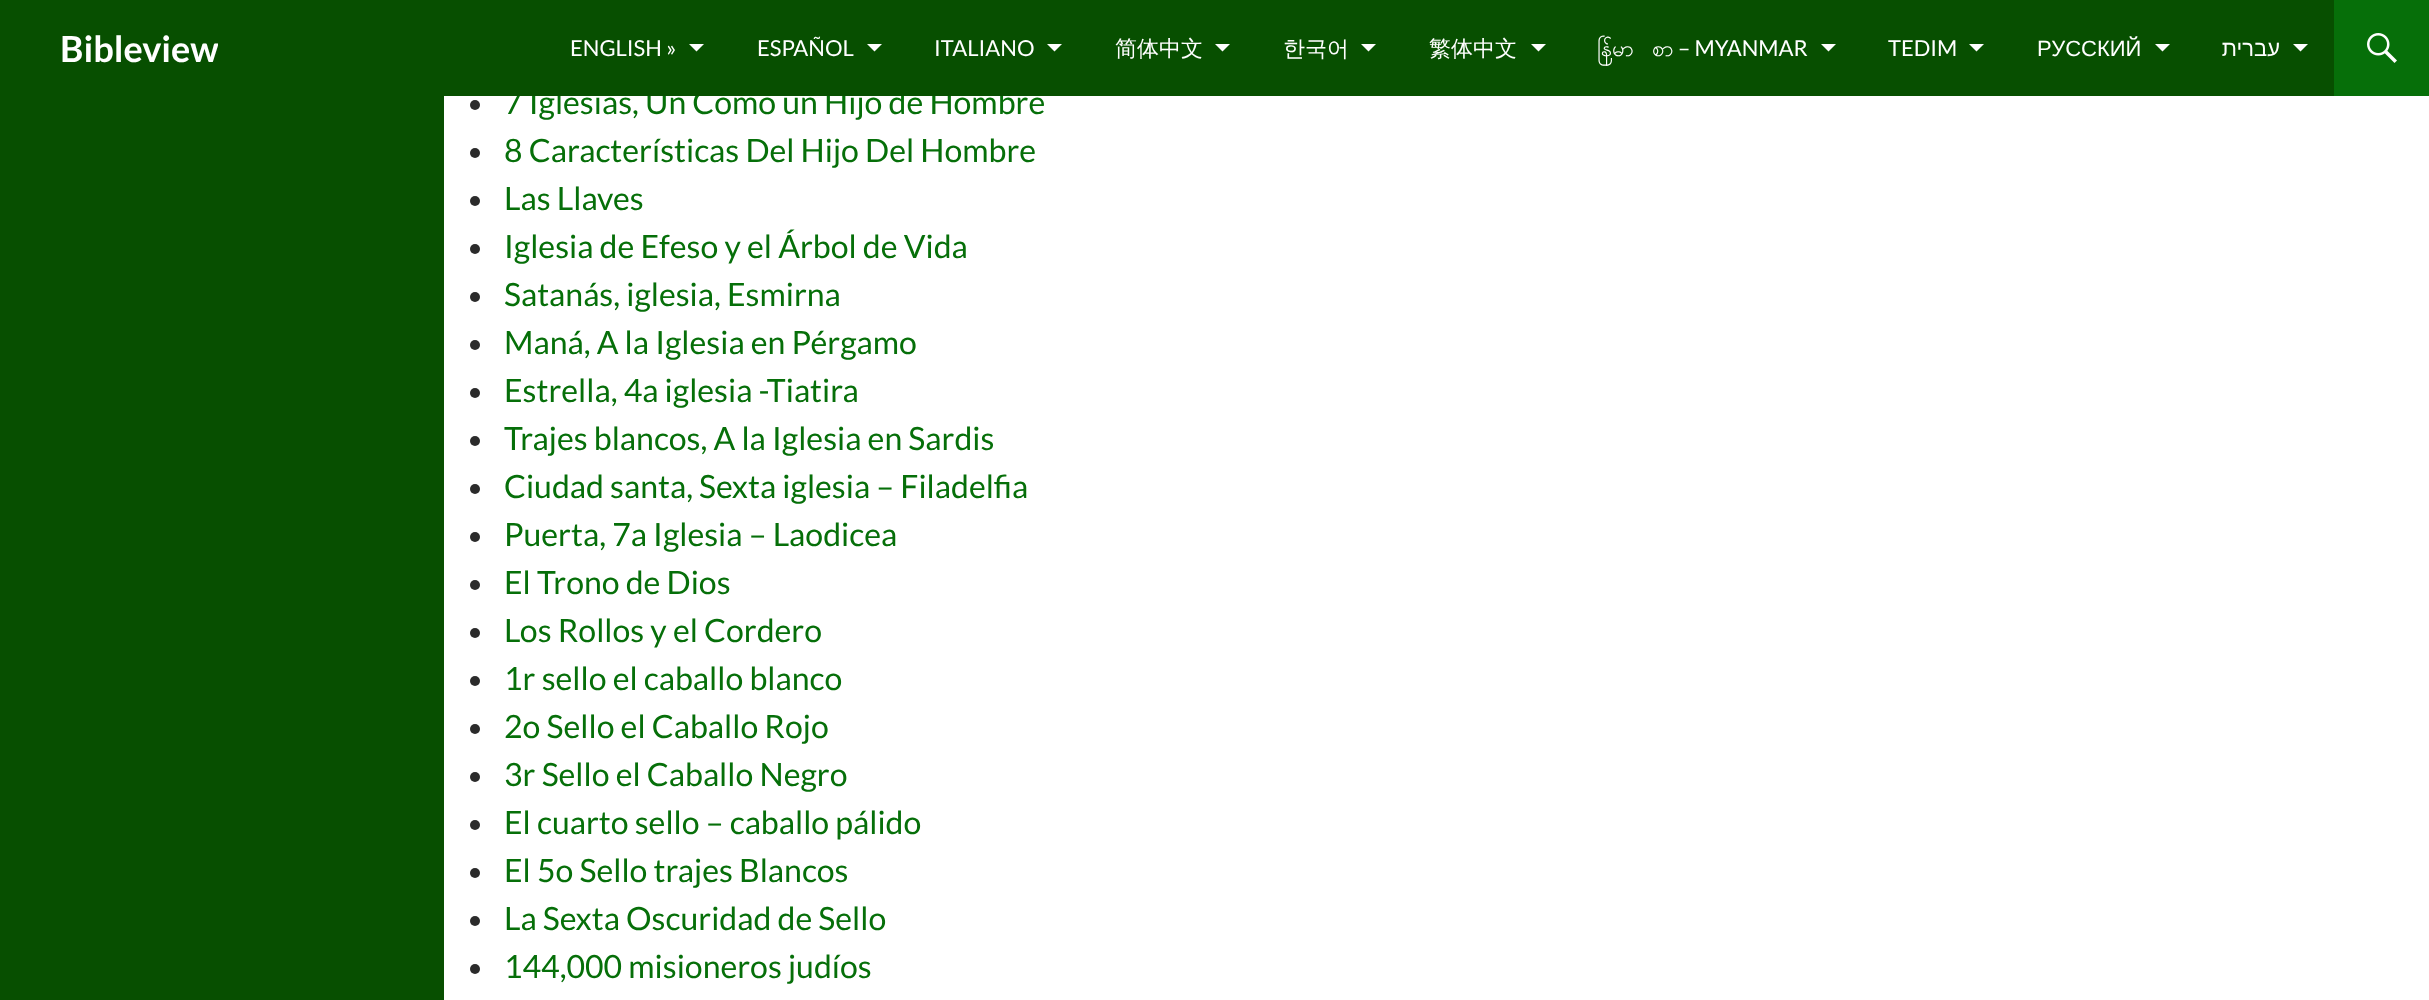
<svg xmlns="http://www.w3.org/2000/svg" width="2429" height="1000">
	<defs>
		<clipPath id="clip1"><rect x="60" y="0" width="158" height="96" /></clipPath>
	</defs>
	<rect width="100%" height="100%" fill="#FFFFFF" />
	<text x="504" y="114" font-family="Lato" font-size="32" fill="#066F09">7 Iglesias, Un Como un Hijo de Hombre</text>
	<rect x="0" y="0" width="2334" height="96" fill="#074F00" />
	<g clip-path="url(#clip1)">
		<text x="60" y="62" font-family="Lato" font-size="36" font-weight="700" fill="#FFFFFF">Bibleview</text>
	</g>
	<text x="570" y="56" font-family="Lato" font-size="22" fill="#FFFFFF">ENGLISH »</text>
	<path d="M689 44L696.5 51.5L704 44Z" fill="#FFFFFF" />
	<text x="757" y="56" font-family="Lato" font-size="22" fill="#FFFFFF">ESPAÑOL</text>
	<path d="M867 44L874.5 51.5L882 44Z" fill="#FFFFFF" />
	<text x="934" y="56" font-family="Lato" font-size="22" fill="#FFFFFF">ITALIANO</text>
	<path d="M1047 44L1054.5 51.5L1062 44Z" fill="#FFFFFF" />
	<text x="1115" y="56" font-family="WenQuanYi Zen Hei" font-size="22" font-weight="500" fill="#FFFFFF">简体中文</text>
	<path d="M1215 44L1222.5 51.5L1230 44Z" fill="#FFFFFF" />
	<text x="1283" y="56" font-family="WenQuanYi Zen Hei" font-size="22" font-weight="500" fill="#FFFFFF">한국어</text>
	<path d="M1361 44L1368.5 51.5L1376 44Z" fill="#FFFFFF" />
	<text x="1429" y="56" font-family="WenQuanYi Zen Hei" font-size="22" font-weight="500" fill="#FFFFFF">繁体中文</text>
	<path d="M1531 44L1538.5 51.5L1546 44Z" fill="#FFFFFF" />
	<g font-family="Padauk" font-size="22" fill="#FFFFFF">
		<text x="1597" y="56">ြန်မာ</text>
		<text x="1652" y="56">စာ</text>
	</g>
	<text x="1678" y="56" font-family="Lato" font-size="22" fill="#FFFFFF">– MYANMAR</text>
	<path d="M1821 44L1828.5 51.5L1836 44Z" fill="#FFFFFF" />
	<text x="1888" y="56" font-family="Lato" font-size="22" fill="#FFFFFF">TEDIM</text>
	<path d="M1969 44L1976.5 51.5L1984 44Z" fill="#FFFFFF" />
	<text x="2037" y="56" font-family="Liberation Sans" font-size="22" fill="#FFFFFF">РУССКИЙ</text>
	<path d="M2155 44L2162.5 51.5L2170 44Z" fill="#FFFFFF" />
	<text x="2280" y="56" font-family="Liberation Sans" font-size="22" direction="rtl" fill="#FFFFFF">עברית</text>
	<path d="M2293 44L2300.5 51.5L2308 44Z" fill="#FFFFFF" />
	<rect x="2334" y="0" width="95" height="96" fill="#066F09" />
	<image x="2367" y="33" width="30" height="30" href="assets/img1.png" />
	<rect x="0" y="96" width="444" height="904" fill="#074F00" />
	<circle cx="475" cy="105" r="5" fill="#2B2B2B" />
	<circle cx="475" cy="153" r="5" fill="#2B2B2B" />
	<text x="504" y="162" font-family="Lato" font-size="32" fill="#066F09">8 Características Del Hijo Del Hombre</text>
	<circle cx="475" cy="201" r="5" fill="#2B2B2B" />
	<text x="504" y="210" font-family="Lato" font-size="32" fill="#066F09">Las Llaves</text>
	<circle cx="475" cy="249" r="5" fill="#2B2B2B" />
	<text x="504" y="258" font-family="Lato" font-size="32" fill="#066F09">Iglesia de Efeso y el Árbol de Vida</text>
	<circle cx="475" cy="297" r="5" fill="#2B2B2B" />
	<text x="504" y="306" font-family="Lato" font-size="32" fill="#066F09">Satanás, iglesia, Esmirna</text>
	<circle cx="475" cy="345" r="5" fill="#2B2B2B" />
	<text x="504" y="354" font-family="Lato" font-size="32" fill="#066F09">Maná, A la Iglesia en Pérgamo</text>
	<circle cx="475" cy="393" r="5" fill="#2B2B2B" />
	<text x="504" y="402" font-family="Lato" font-size="32" fill="#066F09">Estrella, 4a iglesia -Tiatira</text>
	<circle cx="475" cy="441" r="5" fill="#2B2B2B" />
	<text x="504" y="450" font-family="Lato" font-size="32" fill="#066F09">Trajes blancos, A la Iglesia en Sardis</text>
	<circle cx="475" cy="489" r="5" fill="#2B2B2B" />
	<text x="504" y="498" font-family="Lato" font-size="32" fill="#066F09">Ciudad santa, Sexta iglesia – Filadelfia</text>
	<circle cx="475" cy="537" r="5" fill="#2B2B2B" />
	<text x="504" y="546" font-family="Lato" font-size="32" fill="#066F09">Puerta, 7a Iglesia – Laodicea</text>
	<circle cx="475" cy="585" r="5" fill="#2B2B2B" />
	<text x="504" y="594" font-family="Lato" font-size="32" fill="#066F09">El Trono de Dios</text>
	<circle cx="475" cy="633" r="5" fill="#2B2B2B" />
	<text x="504" y="642" font-family="Lato" font-size="32" fill="#066F09">Los Rollos y el Cordero</text>
	<circle cx="475" cy="681" r="5" fill="#2B2B2B" />
	<text x="504" y="690" font-family="Lato" font-size="32" fill="#066F09">1r sello el caballo blanco</text>
	<circle cx="475" cy="729" r="5" fill="#2B2B2B" />
	<text x="504" y="738" font-family="Lato" font-size="32" fill="#066F09">2o Sello el Caballo Rojo</text>
	<circle cx="475" cy="777" r="5" fill="#2B2B2B" />
	<text x="504" y="786" font-family="Lato" font-size="32" fill="#066F09">3r Sello el Caballo Negro</text>
	<circle cx="475" cy="825" r="5" fill="#2B2B2B" />
	<text x="504" y="834" font-family="Lato" font-size="32" fill="#066F09">El cuarto sello – caballo pálido</text>
	<circle cx="475" cy="873" r="5" fill="#2B2B2B" />
	<text x="504" y="882" font-family="Lato" font-size="32" fill="#066F09">El 5o Sello trajes Blancos</text>
	<circle cx="475" cy="921" r="5" fill="#2B2B2B" />
	<text x="504" y="930" font-family="Lato" font-size="32" fill="#066F09">La Sexta Oscuridad de Sello</text>
	<circle cx="475" cy="969" r="5" fill="#2B2B2B" />
	<text x="504" y="978" font-family="Lato" font-size="32" fill="#066F09">144,000 misioneros judíos</text>
</svg>
